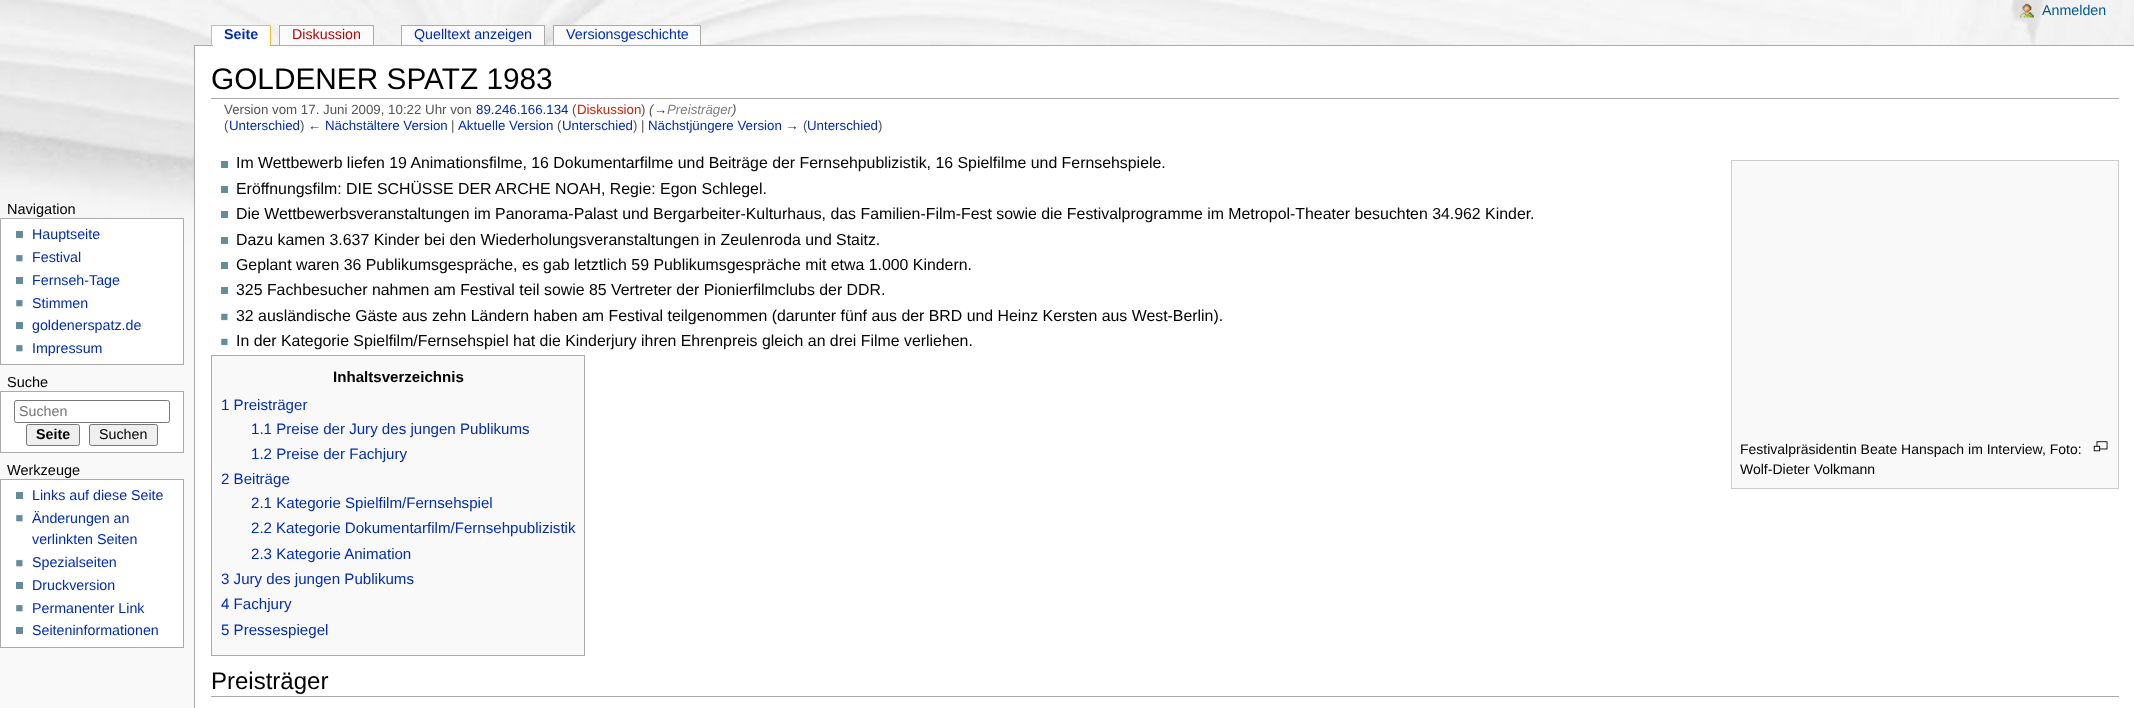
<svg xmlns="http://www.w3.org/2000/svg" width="2134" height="708">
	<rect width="100%" height="100%" fill="#F9F9F9" />
	<image x="0" y="0" width="2134" height="243" href="assets/img1.png" />
	<image x="2020" y="3" width="14" height="15" href="assets/img2.png" />
	<text x="2042" y="15" font-family="Liberation Sans" font-size="14.25" fill="#005896">Anmelden</text>
	<rect x="194" y="45" width="1940" height="1" fill="#AAAAAA" />
	<rect x="213" y="26" width="57" height="20" fill="#FFFFFF" />
	<text x="224" y="39" font-family="Liberation Sans" font-size="14.25" font-weight="700" fill="#002BB8">Seite</text>
	<rect x="212" y="26" width="1" height="19" fill="#FFFFFF" />
	<rect x="211" y="25" width="60" height="1" fill="#FABD23" />
	<rect x="270" y="25" width="1" height="20" fill="#FABD23" />
	<rect x="211" y="25" width="1" height="20" fill="#FABD23" />
	<rect x="280" y="26" width="93" height="19" fill="#FBFBFB" />
	<text x="292" y="39" font-family="Liberation Sans" font-size="14.25" fill="#BA0000">Diskussion</text>
	<rect x="279" y="25" width="95" height="1" fill="#AAAAAA" />
	<rect x="373" y="25" width="1" height="20" fill="#AAAAAA" />
	<rect x="279" y="25" width="1" height="20" fill="#AAAAAA" />
	<rect x="403" y="26" width="141" height="19" fill="#FBFBFB" />
	<text x="414" y="39" font-family="Liberation Sans" font-size="14.25" fill="#002BB8">Quelltext anzeigen</text>
	<rect x="402" y="26" width="1" height="19" fill="#FFFFFF" />
	<rect x="401" y="25" width="144" height="1" fill="#AAAAAA" />
	<rect x="544" y="25" width="1" height="20" fill="#AAAAAA" />
	<rect x="401" y="25" width="1" height="20" fill="#AAAAAA" />
	<rect x="554" y="26" width="146" height="19" fill="#FBFBFB" />
	<text x="566" y="39" font-family="Liberation Sans" font-size="14.25" fill="#002BB8">Versionsgeschichte</text>
	<rect x="553" y="25" width="148" height="1" fill="#AAAAAA" />
	<rect x="700" y="25" width="1" height="20" fill="#AAAAAA" />
	<rect x="553" y="25" width="1" height="20" fill="#AAAAAA" />
	<text x="7" y="214" font-family="Liberation Sans" font-size="14.5" fill="#000000">Navigation</text>
	<rect x="0.5" y="218.5" width="183" height="146" fill="#FFFFFF" stroke="#AAAAAA" />
	<rect x="16" y="231" width="7" height="7" fill="#638C9C" />
	<text x="32" y="239" font-family="Liberation Sans" font-size="14.25" fill="#002BB8">Hauptseite</text>
	<image x="16" y="254" width="7" height="8" href="assets/img3.png" />
	<text x="32" y="262" font-family="Liberation Sans" font-size="14.25" fill="#002BB8">Festival</text>
	<rect x="16" y="277" width="7" height="7" fill="#638C9C" />
	<text x="32" y="285" font-family="Liberation Sans" font-size="14.25" fill="#002BB8">Fernseh-Tage</text>
	<image x="16" y="299" width="7" height="8" href="assets/img3.png" />
	<text x="32" y="308" font-family="Liberation Sans" font-size="14.25" fill="#002BB8">Stimmen</text>
	<rect x="16" y="322" width="7" height="7" fill="#638C9C" />
	<text x="32" y="330" font-family="Liberation Sans" font-size="14.25" fill="#002BB8">goldenerspatz.de</text>
	<image x="16" y="344" width="7" height="8" href="assets/img3.png" />
	<text x="32" y="353" font-family="Liberation Sans" font-size="14.25" fill="#002BB8">Impressum</text>
	<text x="7" y="387" font-family="Liberation Sans" font-size="14.5" fill="#000000">Suche</text>
	<rect x="0.5" y="391.5" width="183" height="61" fill="#FFFFFF" stroke="#AAAAAA" />
	<rect x="14.5" y="400.5" width="155" height="22" rx="2" fill="none" stroke="#767676" />
	<text x="19" y="416" font-family="Liberation Sans" font-size="14.25" fill="#757575">Suchen</text>
	<rect x="26.5" y="424.5" width="53" height="21" rx="2" fill="#EFEFEF" stroke="#767676" />
	<text x="36" y="439" font-family="Liberation Sans" font-size="14.25" font-weight="700" fill="#000000">Seite</text>
	<rect x="89.5" y="424.5" width="68" height="21" rx="2" fill="#EFEFEF" stroke="#767676" />
	<text x="99" y="439" font-family="Liberation Sans" font-size="14.25" fill="#000000">Suchen</text>
	<text x="7" y="475" font-family="Liberation Sans" font-size="14.5" fill="#000000">Werkzeuge</text>
	<rect x="0.5" y="479.5" width="183" height="168" fill="#FFFFFF" stroke="#AAAAAA" />
	<rect x="16" y="492" width="7" height="7" fill="#638C9C" />
	<text x="32" y="500" font-family="Liberation Sans" font-size="14.25" fill="#002BB8">Links auf diese Seite</text>
	<image x="16" y="514" width="7" height="8" href="assets/img3.png" />
	<g font-family="Liberation Sans" font-size="14.25" fill="#002BB8">
		<text x="32" y="523">Änderungen an</text>
		<text x="32" y="544">verlinkten Seiten</text>
	</g>
	<image x="16" y="559" width="7" height="8" href="assets/img3.png" />
	<text x="32" y="567" font-family="Liberation Sans" font-size="14.25" fill="#002BB8">Spezialseiten</text>
	<rect x="16" y="582" width="7" height="7" fill="#638C9C" />
	<text x="32" y="590" font-family="Liberation Sans" font-size="14.25" fill="#002BB8">Druckversion</text>
	<image x="16" y="604" width="7" height="8" href="assets/img3.png" />
	<text x="32" y="613" font-family="Liberation Sans" font-size="14.25" fill="#002BB8">Permanenter Link</text>
	<rect x="16" y="627" width="7" height="7" fill="#638C9C" />
	<text x="32" y="635" font-family="Liberation Sans" font-size="14.25" fill="#002BB8">Seiteninformationen</text>
	<rect x="195" y="46" width="1939" height="662" fill="#FFFFFF" />
	<rect x="194" y="45" width="1" height="663" fill="#AAAAAA" />
	<rect x="211" y="98" width="1908" height="1" fill="#AAAAAA" />
	<text x="211" y="89" font-family="Liberation Sans" font-size="29.8" fill="#000000">GOLDENER SPATZ 1983</text>
	<text x="224" y="114" font-family="Liberation Sans" font-size="13.3" fill="#545454">Version vom 17. Juni 2009, 10:22 Uhr von</text>
	<text x="476" y="114" font-family="Liberation Sans" font-size="13.3" fill="#002BB8">89.246.166.134</text>
	<text x="572" y="114" font-family="Liberation Sans" font-size="13.3" fill="#545454">(</text>
	<text x="577" y="114" font-family="Liberation Sans" font-size="13.3" fill="#CC2200">Diskussion</text>
	<text x="641" y="114" font-family="Liberation Sans" font-size="13.3" fill="#545454">)</text>
	<text x="649" y="114" font-family="Liberation Sans" font-size="13.3" font-style="italic" fill="#545454">(</text>
	<text x="667" y="114" font-family="Liberation Sans" font-size="13.3" font-style="italic" fill="#808080">Preisträger</text>
	<text x="654" y="114" font-family="Liberation Sans" font-size="13.3" font-style="italic" fill="#002BB8">→</text>
	<text x="732" y="114" font-family="Liberation Sans" font-size="13.3" font-style="italic" fill="#545454">)</text>
	<text x="224" y="130" font-family="Liberation Sans" font-size="13.3" fill="#545454">(</text>
	<text x="229" y="130" font-family="Liberation Sans" font-size="13.3" fill="#002BB8">Unterschied</text>
	<text x="300" y="130" font-family="Liberation Sans" font-size="13.3" fill="#545454">)</text>
	<text x="308" y="130" font-family="Liberation Sans" font-size="13.3" fill="#002BB8">← Nächstältere Version</text>
	<text x="451" y="130" font-family="Liberation Sans" font-size="13.3" fill="#545454">|</text>
	<text x="458" y="130" font-family="Liberation Sans" font-size="13.3" fill="#002BB8">Aktuelle Version</text>
	<text x="557" y="130" font-family="Liberation Sans" font-size="13.3" fill="#545454">(</text>
	<text x="562" y="130" font-family="Liberation Sans" font-size="13.3" fill="#002BB8">Unterschied</text>
	<text x="633" y="130" font-family="Liberation Sans" font-size="13.3" fill="#545454">) |</text>
	<text x="648" y="130" font-family="Liberation Sans" font-size="13.3" fill="#002BB8">Nächstjüngere Version →</text>
	<text x="803" y="130" font-family="Liberation Sans" font-size="13.3" fill="#545454">(</text>
	<text x="807" y="130" font-family="Liberation Sans" font-size="13.3" fill="#002BB8">Unterschied</text>
	<text x="878" y="130" font-family="Liberation Sans" font-size="13.3" fill="#545454">)</text>
	<rect x="221" y="161" width="7" height="7" fill="#638C9C" />
	<text x="236" y="168" font-family="Liberation Sans" font-size="15.88" fill="#000000">Im Wettbewerb liefen 19 Animationsfilme, 16 Dokumentarfilme und Beiträge der Fernsehpublizistik, 16 Spielfilme und Fernsehspiele.</text>
	<rect x="221" y="186" width="7" height="7" fill="#638C9C" />
	<text x="236" y="194" font-family="Liberation Sans" font-size="15.88" fill="#000000">Eröffnungsfilm: DIE SCHÜSSE DER ARCHE NOAH, Regie: Egon Schlegel.</text>
	<rect x="221" y="211" width="7" height="7" fill="#638C9C" />
	<text x="236" y="219" font-family="Liberation Sans" font-size="15.88" fill="#000000">Die Wettbewerbsveranstaltungen im Panorama-Palast und Bergarbeiter-Kulturhaus, das Familien-Film-Fest sowie die Festivalprogramme im Metropol-Theater besuchten 34.962 Kinder.</text>
	<rect x="221" y="237" width="7" height="7" fill="#638C9C" />
	<text x="236" y="245" font-family="Liberation Sans" font-size="15.88" fill="#000000">Dazu kamen 3.637 Kinder bei den Wiederholungsveranstaltungen in Zeulenroda und Staitz.</text>
	<rect x="221" y="262" width="7" height="7" fill="#638C9C" />
	<text x="236" y="270" font-family="Liberation Sans" font-size="15.88" fill="#000000">Geplant waren 36 Publikumsgespräche, es gab letztlich 59 Publikumsgespräche mit etwa 1.000 Kindern.</text>
	<rect x="221" y="287" width="7" height="7" fill="#638C9C" />
	<text x="236" y="295" font-family="Liberation Sans" font-size="15.88" fill="#000000">325 Fachbesucher nahmen am Festival teil sowie 85 Vertreter der Pionierfilmclubs der DDR.</text>
	<image x="221" y="313" width="7" height="8" href="assets/img4.png" />
	<text x="236" y="321" font-family="Liberation Sans" font-size="15.88" fill="#000000">32 ausländische Gäste aus zehn Ländern haben am Festival teilgenommen (darunter fünf aus der BRD und Heinz Kersten aus West-Berlin).</text>
	<image x="221" y="338" width="7" height="8" href="assets/img4.png" />
	<text x="236" y="346" font-family="Liberation Sans" font-size="15.88" fill="#000000">In der Kategorie Spielfilm/Fernsehspiel hat die Kinderjury ihren Ehrenpreis gleich an drei Filme verliehen.</text>
	<rect x="211.5" y="355.5" width="373" height="300" fill="#F9F9F9" stroke="#AAAAAA" />
	<text x="333" y="382" font-family="Liberation Sans" font-size="15.1" font-weight="700" fill="#000000">Inhaltsverzeichnis</text>
	<g font-family="Liberation Sans" font-size="15.1" fill="#002BB8">
		<text x="221" y="410">1 Preisträger</text>
		<text x="251" y="434">1.1 Preise der Jury des jungen Publikums</text>
		<text x="251" y="459">1.2 Preise der Fachjury</text>
		<text x="221" y="484">2 Beiträge</text>
		<text x="251" y="508">2.1 Kategorie Spielfilm/Fernsehspiel</text>
		<text x="251" y="533">2.2</text>
		<text x="276" y="533">Kategorie Dokumentarfilm/Fernsehpublizistik</text>
		<text x="251" y="559">2.3 Kategorie Animation</text>
		<text x="221" y="584">3 Jury des jungen Publikums</text>
		<text x="221" y="609">4 Fachjury</text>
		<text x="221" y="635">5 Pressespiegel</text>
	</g>
	<rect x="1731.5" y="160.5" width="387" height="328" fill="#F9F9F9" stroke="#CCCCCC" />
	<text x="1740" y="454" font-family="Liberation Sans" font-size="14" fill="#000000">Festivalpräsidentin Beate Hanspach im Interview, Foto:</text>
	<image x="2093" y="441" width="15" height="11" href="assets/img5.png" />
	<text x="1740" y="474" font-family="Liberation Sans" font-size="14" fill="#000000">Wolf-Dieter Volkmann</text>
	<rect x="211" y="696" width="1908" height="1" fill="#AAAAAA" />
	<text x="211" y="689" font-family="Liberation Sans" font-size="24" fill="#000000">Preisträger</text>
</svg>
